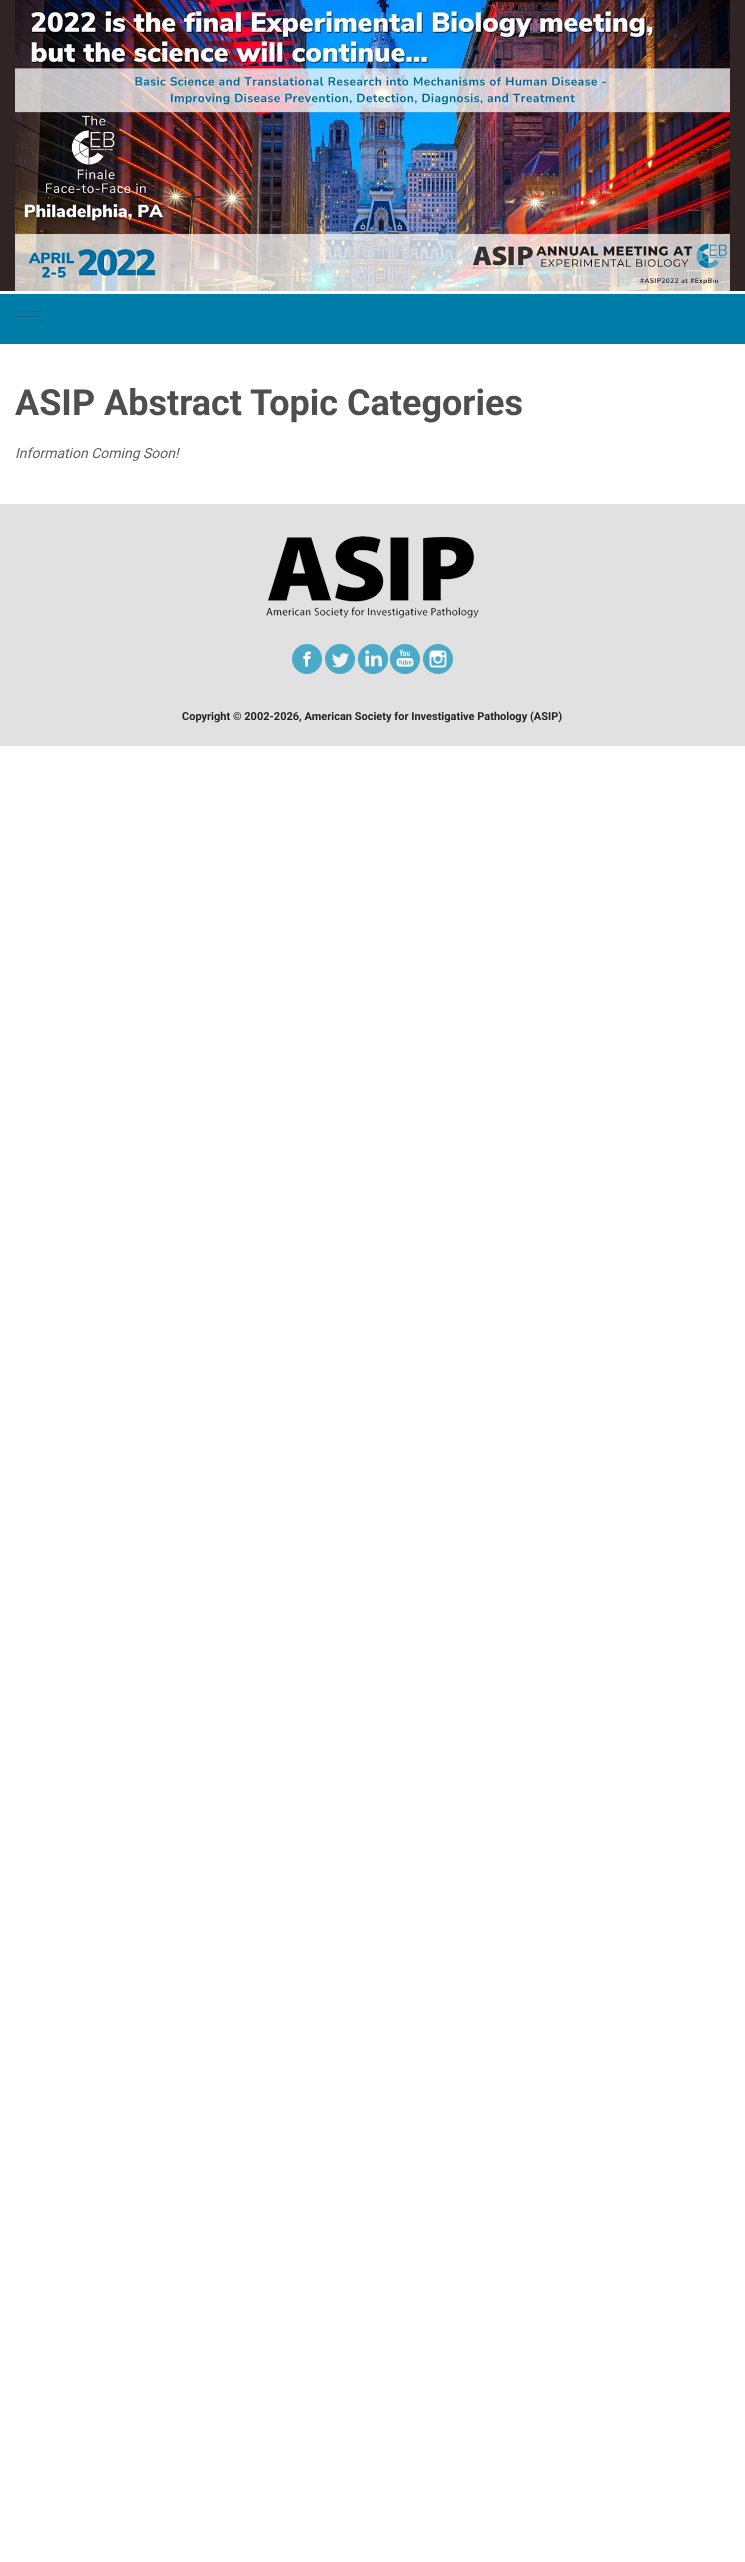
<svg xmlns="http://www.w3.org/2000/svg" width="745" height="2562">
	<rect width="100%" height="100%" fill="#FFFFFF" />
	<rect x="0" y="0" width="745" height="291" fill="#302424" />
	<image x="15" y="0" width="715" height="291" href="assets/img1.png" />
	<rect x="0" y="294" width="745" height="50" fill="#007DA9" />
	<rect x="15" y="311" width="27" height="1" rx="0.5" fill="#18668A" />
	<rect x="15" y="316" width="27" height="1" rx="0.5" fill="#18668A" />
	<rect x="15" y="321" width="27" height="1" rx="0.5" fill="#18668A" />
	<text x="15" y="415" font-family="Roboto" font-size="36" font-weight="700" fill="#4E4E4E">ASIP Abstract Topic Categories</text>
	<text x="15" y="458" font-family="Roboto" font-size="14" font-style="italic" fill="#616161">Information Coming Soon!</text>
	<rect x="0" y="504" width="745" height="242" fill="#E1E1E1" />
	<image x="266" y="536" width="213" height="82" href="assets/img2.png" />
	<image x="292" y="644" width="30" height="30" href="assets/img3.png" />
	<image x="325" y="644" width="30" height="30" href="assets/img4.png" />
	<image x="358" y="644" width="30" height="30" href="assets/img5.png" />
	<image x="390" y="644" width="30" height="30" href="assets/img6.png" />
	<image x="423" y="644" width="30" height="30" href="assets/img7.png" />
	<text x="182" y="720" font-family="Roboto" font-size="11" font-weight="700" fill="#222222">Copyright © 2002-2026, American Society for Investigative Pathology (ASIP)</text>
</svg>
